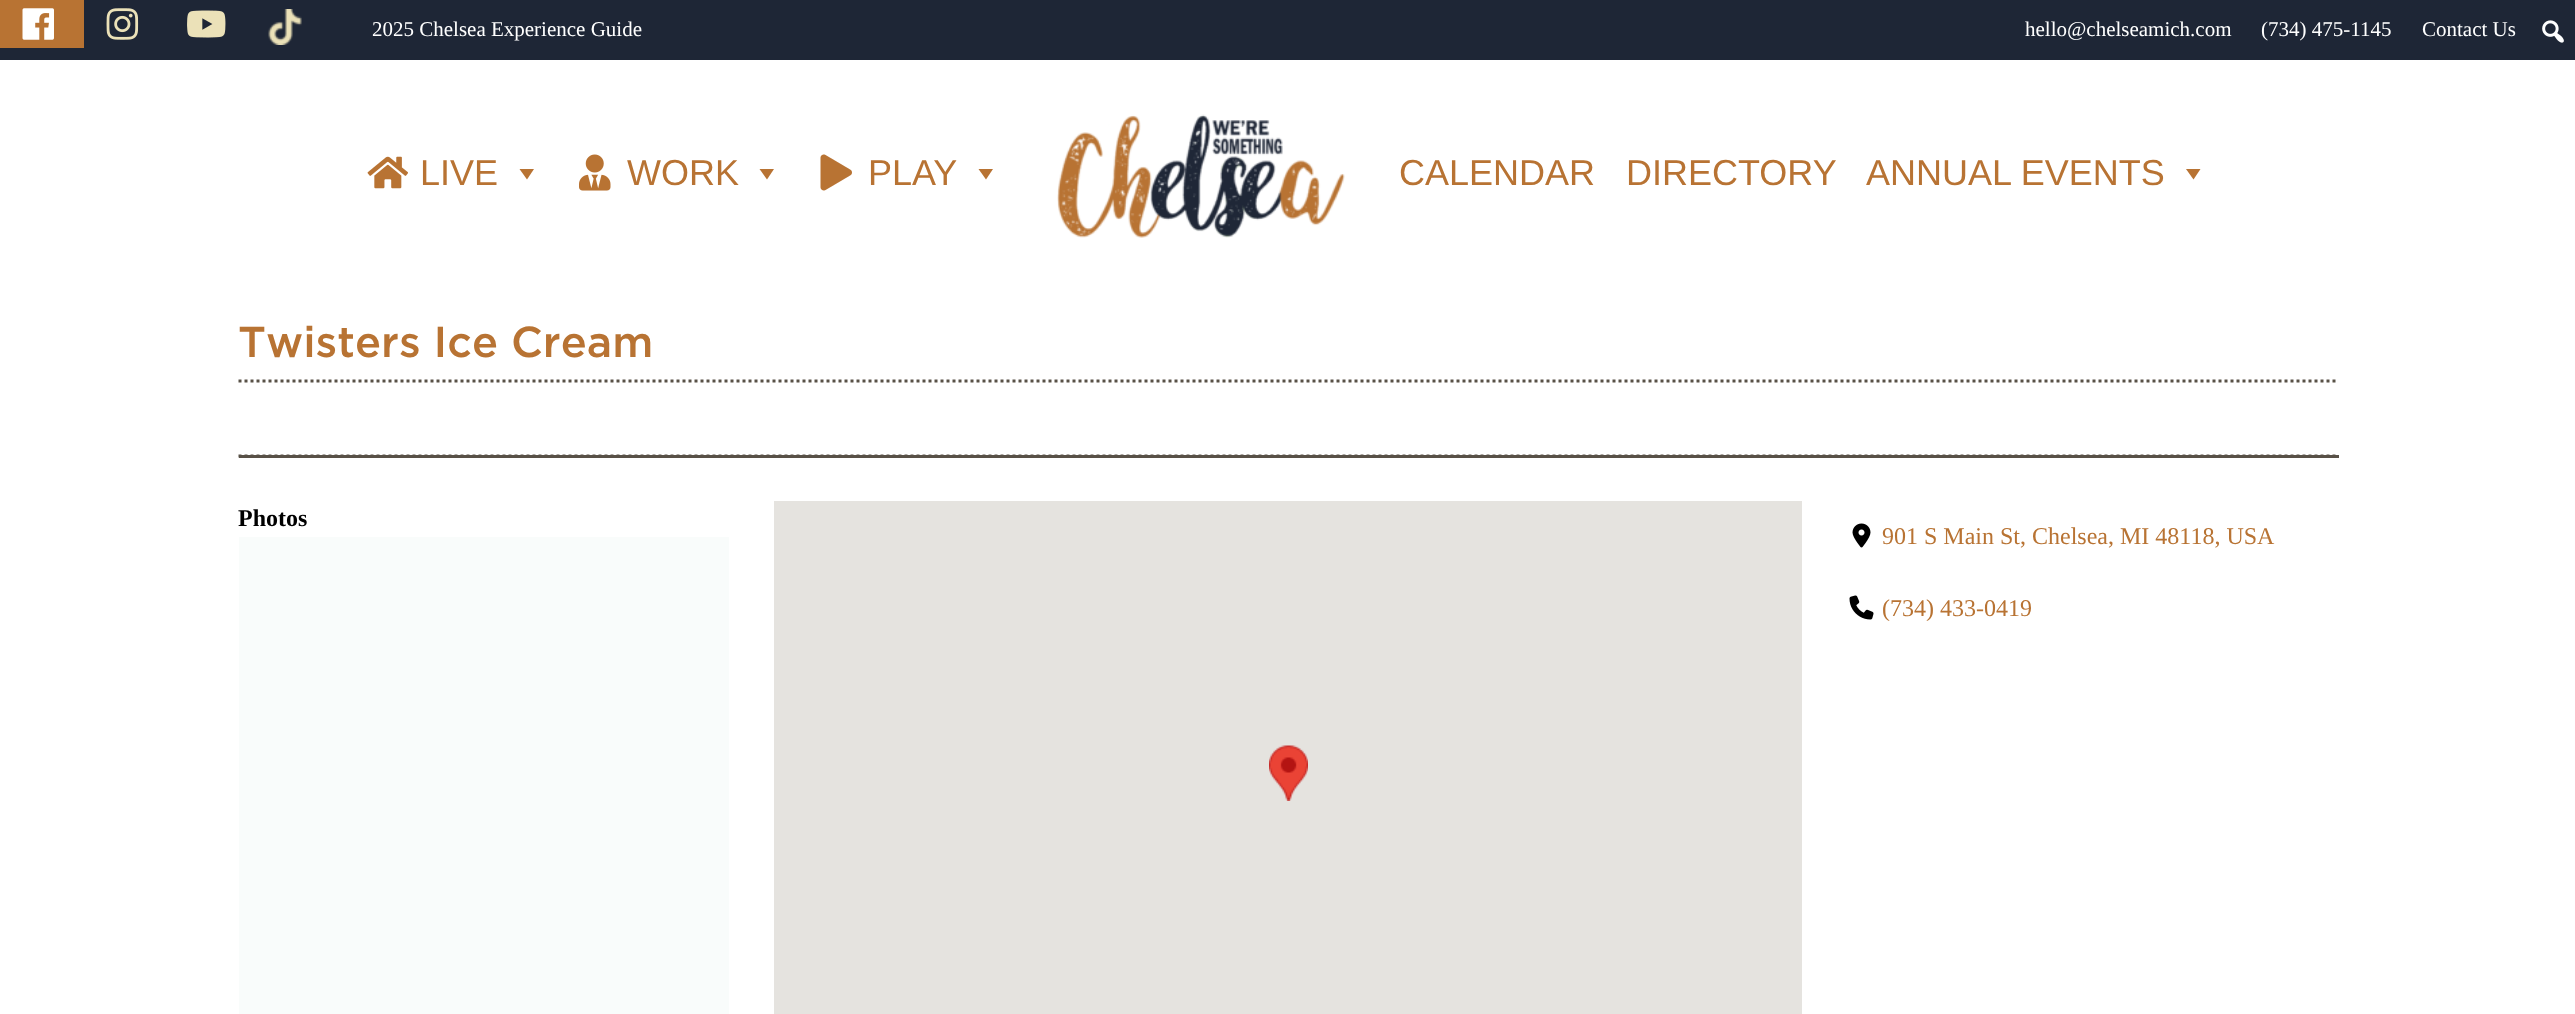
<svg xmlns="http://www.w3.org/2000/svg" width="2575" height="1014">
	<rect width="100%" height="100%" fill="#FFFFFF" />
	<rect x="0" y="0" width="2575" height="60" fill="#1E2636" />
	<rect x="0" y="0" width="84" height="48" fill="#B87333" />
	<image x="22" y="8" width="32" height="32" href="assets/img1.png" />
	<image x="106" y="8" width="33" height="32" href="assets/img2.png" />
	<image x="187" y="10" width="39" height="28" href="assets/img3.png" />
	<image x="268" y="9" width="34" height="36" href="assets/img4.png" />
	<g font-family="Liberation Serif" font-size="21" fill="#FFFFFF">
		<text x="372" y="36">2025 Chelsea Experience Guide</text>
		<text x="2025" y="36">hello@chelseamich.com</text>
		<text x="2261" y="36">(734) 475-1145</text>
		<text x="2422" y="36">Contact Us</text>
	</g>
	<image x="2542" y="20" width="22" height="23" href="assets/img5.png" />
	<image x="367" y="156" width="41" height="33" href="assets/img6.png" />
	<text x="420" y="185" font-family="Liberation Sans" font-size="36" fill="#B87333">LIVE</text>
	<path d="M534 169L527 179.5L519.5 169Z" fill="#B87333" />
	<image x="579" y="154" width="32" height="37" href="assets/img7.png" />
	<text x="627" y="185" font-family="Liberation Sans" font-size="36" fill="#B87333">WORK</text>
	<path d="M774 169L767 179.5L759.5 169Z" fill="#B87333" />
	<image x="820" y="154" width="32" height="37" href="assets/img8.png" />
	<text x="868" y="185" font-family="Liberation Sans" font-size="36" fill="#B87333">PLAY</text>
	<path d="M993 169L986 179.5L978.5 169Z" fill="#B87333" />
	<image x="1057" y="114" width="288" height="124" href="assets/img9.png" />
	<g font-family="Liberation Sans" font-size="36" fill="#B87333">
		<text x="1399" y="185">CALENDAR</text>
		<text x="1626" y="185">DIRECTORY</text>
		<text x="1866" y="185">ANNUAL EVENTS</text>
	</g>
	<path d="M2200.5 169L2193.5 179.5L2186 169Z" fill="#B87333" />
	<path d="M238.5 381H2338.5" fill="none" stroke="#585147" stroke-width="3" stroke-dasharray="3 3" />
	<text x="238" y="357" font-family="Gotham" font-size="43.25" font-weight="500" fill="#B87333">Twisters Ice Cream</text>
	<rect x="239" y="455" width="2100" height="3" fill="#585147" />
	<path d="M238.5 456H2338.5" fill="none" stroke="#585147" stroke-width="3" stroke-dasharray="3 3" />
	<text x="238" y="526" font-family="Liberation Serif" font-size="24" font-weight="700" fill="#000000">Photos</text>
	<rect x="239" y="537" width="490" height="477" fill="#F9FCFB" />
	<rect x="774" y="501" width="1028" height="513" fill="#E5E3DF" />
	<image x="1269" y="745" width="39" height="56" href="assets/img10.png" />
	<image x="1852" y="523" width="19" height="25" href="assets/img11.png" />
	<text x="1882" y="544" font-family="Liberation Serif" font-size="24" fill="#B87333">901 S Main St, Chelsea, MI 48118, USA</text>
	<image x="1849" y="595" width="25" height="25" href="assets/img12.png" />
	<text x="1882" y="616" font-family="Liberation Serif" font-size="24" fill="#B87333">(734) 433-0419</text>
</svg>
